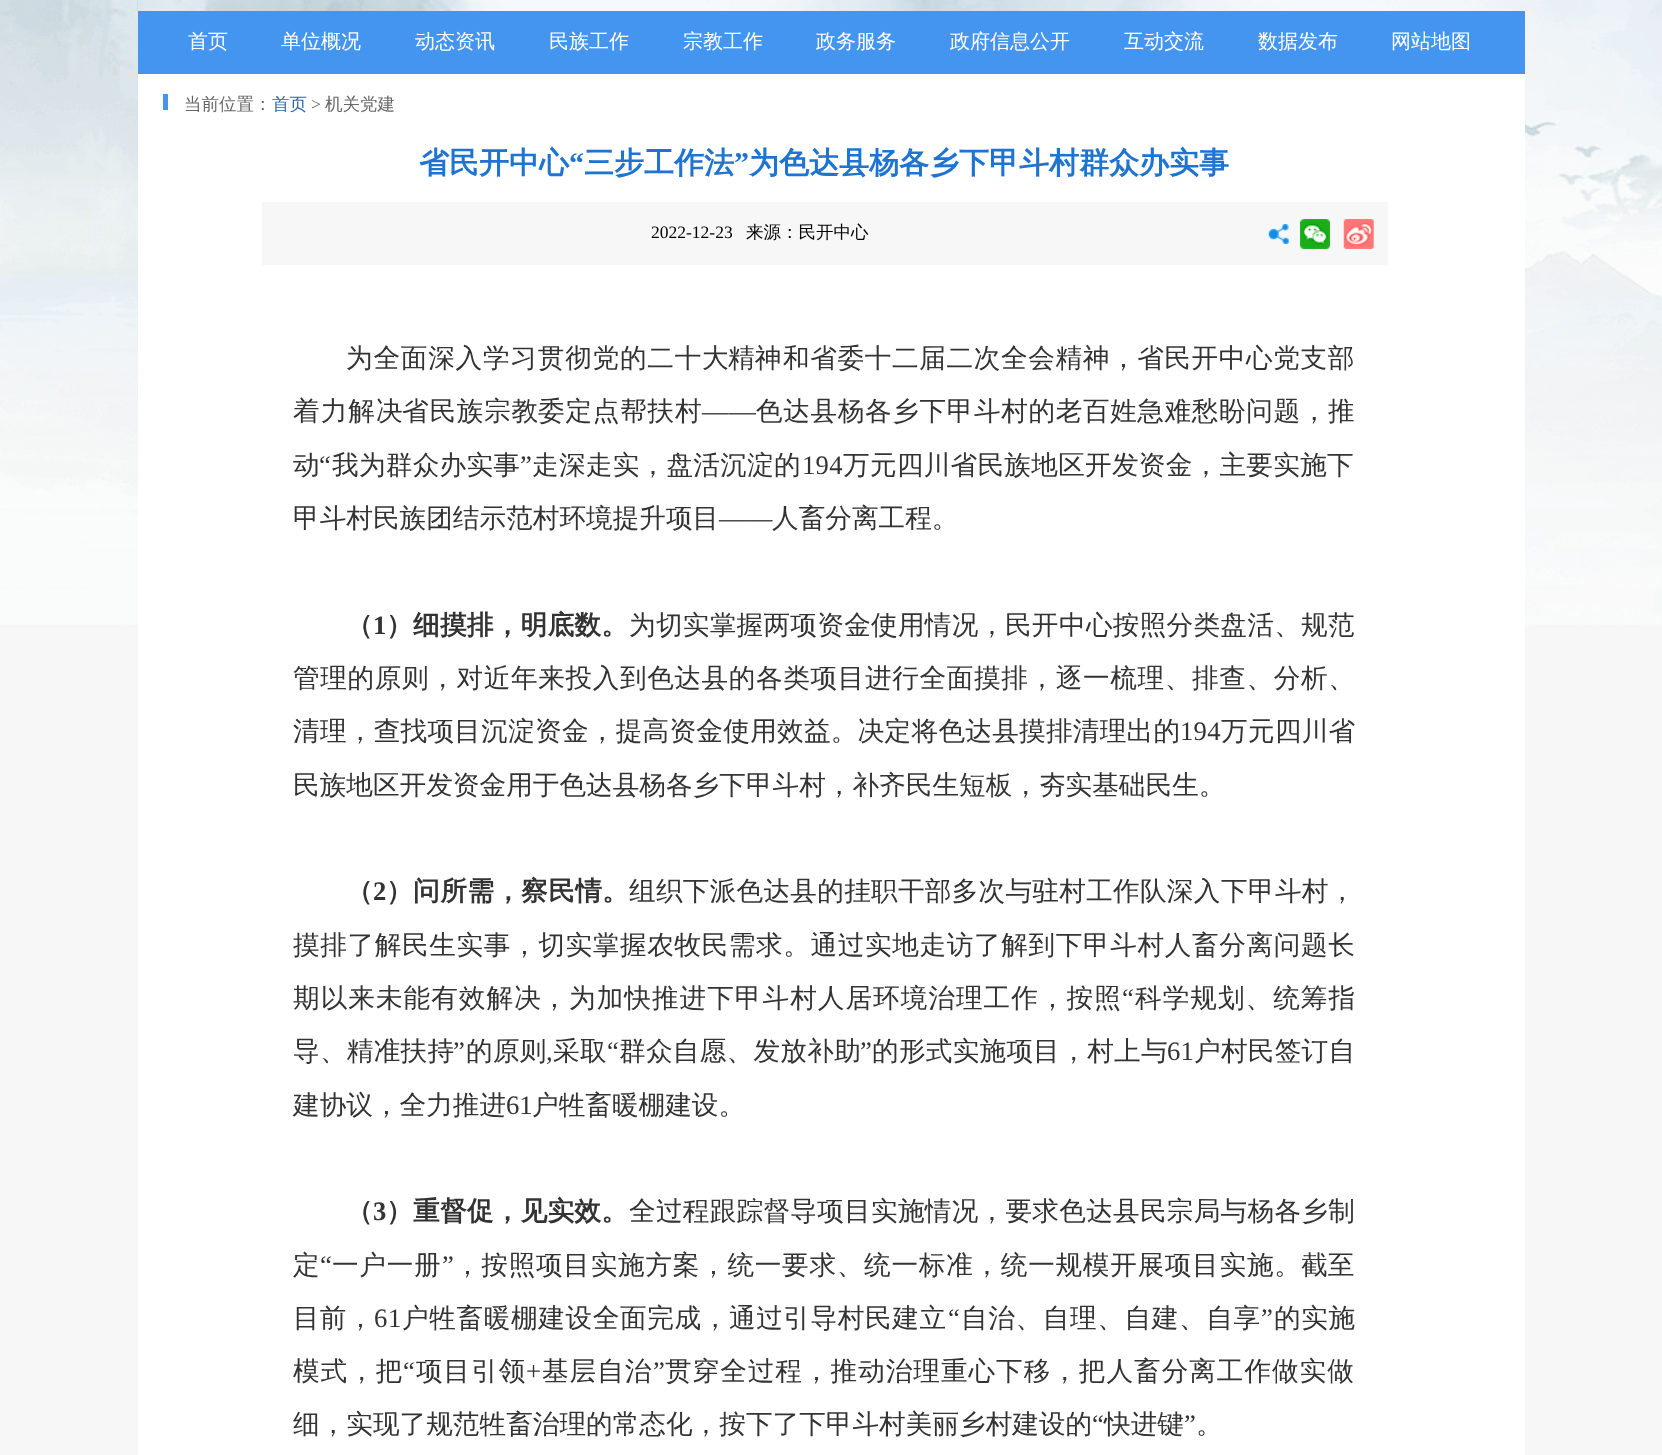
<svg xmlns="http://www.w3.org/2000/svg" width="1662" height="1455">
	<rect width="100%" height="100%" fill="#F7F7F7" />
	<image x="0" y="0" width="1662" height="625" href="assets/img1.png" />
	<rect x="138" y="0" width="1387" height="1455" fill="#FFFFFF" />
	<image x="137" y="0" width="1388" height="12" href="assets/img2.png" />
	<rect x="138" y="11" width="1387" height="63" fill="#4495EF" />
	<g font-family="WenQuanYi Zen Hei" font-size="20" font-weight="500" fill="#FFFFFF">
		<text x="188" y="48">首页</text>
		<text x="281" y="48">单位概况</text>
		<text x="415" y="48">动态资讯</text>
		<text x="549" y="48">民族工作</text>
		<text x="683" y="48">宗教工作</text>
		<text x="816" y="48">政务服务</text>
		<text x="950" y="48">政府信息公开</text>
		<text x="1124" y="48">互动交流</text>
		<text x="1258" y="48">数据发布</text>
		<text x="1391" y="48">网站地图</text>
	</g>
	<rect x="163" y="94" width="5" height="16" fill="#4495EF" />
	<text x="184" y="110" font-family="WenQuanYi Zen Hei" font-size="17.5" font-weight="500" fill="#666666">当前位置：</text>
	<text x="272" y="110" font-family="WenQuanYi Zen Hei" font-size="17.5" font-weight="500" fill="#2D66A5">首页</text>
	<text x="311" y="110" font-family="Liberation Serif" font-size="17.5" fill="#666666">&gt;</text>
	<text x="325" y="110" font-family="WenQuanYi Zen Hei" font-size="17.5" font-weight="500" fill="#666666">机关党建</text>
	<text x="419" y="173" font-family="WenQuanYi Zen Hei" font-size="30" font-weight="700" fill="#1F73D1">省民开中心</text>
	<text x="569" y="173" font-family="Liberation Serif" font-size="30" font-weight="700" fill="#1F73D1">“</text>
	<text x="584" y="173" font-family="WenQuanYi Zen Hei" font-size="30" font-weight="700" fill="#1F73D1">三步工作法</text>
	<text x="734" y="173" font-family="Liberation Serif" font-size="30" font-weight="700" fill="#1F73D1">”</text>
	<text x="749" y="173" font-family="WenQuanYi Zen Hei" font-size="30" font-weight="700" fill="#1F73D1">为色达县杨各乡下甲斗村群众办实事</text>
	<rect x="262" y="202" width="1126" height="63" fill="#F7F7F7" />
	<text x="651" y="238" font-family="Liberation Serif" font-size="17.5" fill="#000000">2022-12-23</text>
	<text x="746" y="238" font-family="WenQuanYi Zen Hei" font-size="17.5" font-weight="500" fill="#000000">来源：民开中心</text>
	<image x="1268" y="224" width="21" height="20" href="assets/img3.png" />
	<image x="1300" y="219" width="30" height="30" href="assets/img4.png" />
	<image x="1343" y="219" width="31" height="30" href="assets/img5.png" />
	<text x="346" y="367" font-family="WenQuanYi Zen Hei" font-size="26.65" font-weight="500" letter-spacing="0.75" fill="#333333">为全面深入学习贯彻党的二十大</text>
	<text x="728" y="367" font-family="WenQuanYi Zen Hei" font-size="26.65" font-weight="500" fill="#333333">精神</text>
	<text x="783" y="367" font-family="WenQuanYi Zen Hei" font-size="26.65" font-weight="500" letter-spacing="0.6" fill="#333333">和省委十二届二次全会精神，省民开中心党支部</text>
	<text x="293" y="420" font-family="WenQuanYi Zen Hei" font-size="26.65" font-weight="500" letter-spacing="1" fill="#333333">着力解决</text>
	<g font-family="WenQuanYi Zen Hei" font-size="26.65" font-weight="500" letter-spacing="0.75" fill="#333333">
		<text x="402" y="420">省民族宗教</text>
		<text x="538" y="420">委定点帮扶村</text>
	</g>
	<text x="702" y="420" font-family="Liberation Serif" font-size="26.65" letter-spacing="0.6" fill="#333333">——</text>
	<text x="756" y="420" font-family="WenQuanYi Zen Hei" font-size="26.65" font-weight="500" letter-spacing="0.6" fill="#333333">色达县杨各乡下甲斗村的老百姓急难愁盼问题，推</text>
	<text x="293" y="474" font-family="WenQuanYi Zen Hei" font-size="26.65" font-weight="500" letter-spacing="0.25" fill="#333333">动</text>
	<text x="319" y="474" font-family="Liberation Serif" font-size="26.65" letter-spacing="0.25" fill="#333333">“</text>
	<text x="332" y="474" font-family="WenQuanYi Zen Hei" font-size="26.65" font-weight="500" letter-spacing="0.25" fill="#333333">我为群众办实事</text>
	<text x="520" y="474" font-family="Liberation Serif" font-size="26.65" letter-spacing="0.25" fill="#333333">”</text>
	<text x="532" y="474" font-family="WenQuanYi Zen Hei" font-size="26.65" font-weight="500" letter-spacing="0.25" fill="#333333">走深走实，盘活沉淀的</text>
	<text x="802" y="474" font-family="Liberation Serif" font-size="26.65" letter-spacing="0.25" fill="#333333">194</text>
	<text x="843" y="474" font-family="WenQuanYi Zen Hei" font-size="26.65" font-weight="500" letter-spacing="0.25" fill="#333333">万元四川省民族地区开发资金，主要实施下</text>
	<text x="293" y="527" font-family="WenQuanYi Zen Hei" font-size="26.65" font-weight="500" fill="#333333">甲斗村民族团结示范村环境提升项目</text>
	<text x="719" y="527" font-family="Liberation Serif" font-size="26.65" fill="#333333">——</text>
	<text x="772" y="527" font-family="WenQuanYi Zen Hei" font-size="26.65" font-weight="500" fill="#333333">人畜分离工程。</text>
	<text x="346" y="634" font-family="WenQuanYi Zen Hei" font-size="26.65" font-weight="700" fill="#333333">（</text>
	<text x="373" y="634" font-family="Liberation Serif" font-size="26.65" font-weight="700" fill="#333333">1</text>
	<text x="386" y="634" font-family="WenQuanYi Zen Hei" font-size="26.65" font-weight="700" fill="#333333">）</text>
	<text x="413" y="634" font-family="WenQuanYi Zen Hei" font-size="26.65" font-weight="700" letter-spacing="0.25" fill="#333333">细摸排，明底数。</text>
	<text x="629" y="634" font-family="WenQuanYi Zen Hei" font-size="26.65" font-weight="500" letter-spacing="0.25" fill="#333333">为切实掌握两项资金使用情况，</text>
	<text x="1005" y="634" font-family="WenQuanYi Zen Hei" font-size="26.65" font-weight="500" fill="#333333">民开</text>
	<text x="1059" y="634" font-family="WenQuanYi Zen Hei" font-size="26.65" font-weight="500" letter-spacing="0.25" fill="#333333">中心按照分类盘活、规范</text>
	<text x="293" y="687" font-family="WenQuanYi Zen Hei" font-size="26.65" font-weight="500" letter-spacing="0.6" fill="#333333">管理的原则，对近年来投入到色达县的各类项目进行全面摸排，逐一梳理、排查、分析、</text>
	<text x="293" y="740" font-family="WenQuanYi Zen Hei" font-size="26.65" font-weight="500" letter-spacing="0.25" fill="#333333">清理，查找项目沉淀资金，提高资金使用效益。决定将色达县摸排清理出的</text>
	<text x="1180" y="740" font-family="Liberation Serif" font-size="26.65" letter-spacing="0.25" fill="#333333">194</text>
	<text x="1221" y="740" font-family="WenQuanYi Zen Hei" font-size="26.65" font-weight="500" letter-spacing="0.25" fill="#333333">万元四川省</text>
	<text x="293" y="794" font-family="WenQuanYi Zen Hei" font-size="26.65" font-weight="500" fill="#333333">民族地区开发资金用于色达县杨各乡下甲斗村，补齐民生短板，夯实基础民生。</text>
	<text x="346" y="900" font-family="WenQuanYi Zen Hei" font-size="26.65" font-weight="700" fill="#333333">（</text>
	<text x="373" y="900" font-family="Liberation Serif" font-size="26.65" font-weight="700" fill="#333333">2</text>
	<text x="386" y="900" font-family="WenQuanYi Zen Hei" font-size="26.65" font-weight="700" fill="#333333">）</text>
	<g font-family="WenQuanYi Zen Hei" font-size="26.65" font-weight="700" letter-spacing="0.5" fill="#333333">
		<text x="413" y="900">问所需，</text>
		<text x="521" y="900">察民情</text>
	</g>
	<text x="602" y="900" font-family="WenQuanYi Zen Hei" font-size="26.65" font-weight="700" fill="#333333">。</text>
	<text x="629" y="900" font-family="WenQuanYi Zen Hei" font-size="26.65" font-weight="500" letter-spacing="0.25" fill="#333333">组织下派色达县的挂职干部多次与驻村工作队深入</text>
	<text x="1221" y="900" font-family="WenQuanYi Zen Hei" font-size="26.65" font-weight="500" fill="#333333">下</text>
	<text x="1248" y="900" font-family="WenQuanYi Zen Hei" font-size="26.65" font-weight="500" letter-spacing="0.25" fill="#333333">甲斗村，</text>
	<text x="293" y="954" font-family="WenQuanYi Zen Hei" font-size="26.65" font-weight="500" letter-spacing="0.6" fill="#333333">摸排了解民生实事，切实掌握农牧民需求。通过实地走访了解到下甲斗村人畜分离问题长</text>
	<g font-family="WenQuanYi Zen Hei" font-size="26.65" font-weight="500" letter-spacing="1" fill="#333333">
		<text x="293" y="1007">期以来未能有效解决</text>
		<text x="569" y="1007">为加快推进下甲斗村人居环境治理工作，按照</text>
	</g>
	<text x="1122" y="1007" font-family="Liberation Serif" font-size="26.65" letter-spacing="1" fill="#333333">“</text>
	<text x="1135" y="1007" font-family="WenQuanYi Zen Hei" font-size="26.65" font-weight="500" letter-spacing="1" fill="#333333">科学规划、统筹指</text>
	<text x="541" y="1007" font-family="WenQuanYi Zen Hei" font-size="26.65" font-weight="500" fill="#333333">，</text>
	<text x="293" y="1060" font-family="WenQuanYi Zen Hei" font-size="26.65" font-weight="500" letter-spacing="0.25" fill="#333333">导、精准扶持</text>
	<text x="453" y="1060" font-family="Liberation Serif" font-size="26.65" letter-spacing="0.25" fill="#333333">”</text>
	<text x="466" y="1060" font-family="WenQuanYi Zen Hei" font-size="26.65" font-weight="500" letter-spacing="0.25" fill="#333333">的原则</text>
	<text x="546" y="1060" font-family="Liberation Serif" font-size="26.65" letter-spacing="0.25" fill="#333333">,</text>
	<text x="553" y="1060" font-family="WenQuanYi Zen Hei" font-size="26.65" font-weight="500" letter-spacing="0.25" fill="#333333">采取</text>
	<text x="607" y="1060" font-family="Liberation Serif" font-size="26.65" letter-spacing="0.25" fill="#333333">“</text>
	<text x="619" y="1060" font-family="WenQuanYi Zen Hei" font-size="26.65" font-weight="500" letter-spacing="0.25" fill="#333333">群众自愿、发放补助</text>
	<text x="860" y="1060" font-family="Liberation Serif" font-size="26.65" letter-spacing="0.25" fill="#333333">”</text>
	<text x="872" y="1060" font-family="WenQuanYi Zen Hei" font-size="26.65" font-weight="500" letter-spacing="0.25" fill="#333333">的形式实施项目，村上与</text>
	<text x="1167" y="1060" font-family="Liberation Serif" font-size="26.65" letter-spacing="0.25" fill="#333333">61</text>
	<text x="1194" y="1060" font-family="WenQuanYi Zen Hei" font-size="26.65" font-weight="500" letter-spacing="0.25" fill="#333333">户村民签订自</text>
	<text x="293" y="1114" font-family="WenQuanYi Zen Hei" font-size="26.65" font-weight="500" fill="#333333">建协议，全力推进</text>
	<text x="506" y="1114" font-family="Liberation Serif" font-size="26.65" fill="#333333">61</text>
	<text x="532" y="1114" font-family="WenQuanYi Zen Hei" font-size="26.65" font-weight="500" fill="#333333">户牲畜暖棚建设。</text>
	<text x="346" y="1220" font-family="WenQuanYi Zen Hei" font-size="26.65" font-weight="700" fill="#333333">（</text>
	<text x="373" y="1220" font-family="Liberation Serif" font-size="26.65" font-weight="700" fill="#333333">3</text>
	<text x="386" y="1220" font-family="WenQuanYi Zen Hei" font-size="26.65" font-weight="700" fill="#333333">）</text>
	<text x="413" y="1220" font-family="WenQuanYi Zen Hei" font-size="26.65" font-weight="700" letter-spacing="0.25" fill="#333333">重督促，见实效。</text>
	<text x="629" y="1220" font-family="WenQuanYi Zen Hei" font-size="26.65" font-weight="500" letter-spacing="0.25" fill="#333333">全过程跟踪督导项目实施情况，要求色达县民宗局与杨各乡制</text>
	<text x="293" y="1274" font-family="WenQuanYi Zen Hei" font-size="26.65" font-weight="500" fill="#333333">定</text>
	<text x="320" y="1274" font-family="Liberation Serif" font-size="26.65" letter-spacing="0.7" fill="#333333">“</text>
	<text x="332" y="1274" font-family="WenQuanYi Zen Hei" font-size="26.65" font-weight="500" letter-spacing="0.7" fill="#333333">一户一册</text>
	<text x="442" y="1274" font-family="Liberation Serif" font-size="26.65" letter-spacing="0.7" fill="#333333">”</text>
	<text x="454" y="1274" font-family="WenQuanYi Zen Hei" font-size="26.65" font-weight="500" letter-spacing="0.7" fill="#333333">，按照项目实施方案，统一要求、统一标准，统一规模开展项目实施。</text>
	<g font-family="WenQuanYi Zen Hei" font-size="26.65" font-weight="500" fill="#333333">
		<text x="1301" y="1274">截至</text>
		<text x="293" y="1327">目前</text>
	</g>
	<text x="374" y="1327" font-family="Liberation Serif" font-size="26.65" letter-spacing="0.6" fill="#333333">61</text>
	<text x="402" y="1327" font-family="WenQuanYi Zen Hei" font-size="26.65" font-weight="500" letter-spacing="0.6" fill="#333333">户牲畜暖棚建设全面完成，通过引导村民建立</text>
	<text x="948" y="1327" font-family="Liberation Serif" font-size="26.65" letter-spacing="0.6" fill="#333333">“</text>
	<text x="961" y="1327" font-family="WenQuanYi Zen Hei" font-size="26.65" font-weight="500" letter-spacing="0.6" fill="#333333">自治、自理、自建、自享</text>
	<text x="1261" y="1327" font-family="Liberation Serif" font-size="26.65" letter-spacing="0.6" fill="#333333">”</text>
	<text x="1274" y="1327" font-family="WenQuanYi Zen Hei" font-size="26.65" font-weight="500" letter-spacing="0.6" fill="#333333">的实施</text>
	<text x="347" y="1327" font-family="WenQuanYi Zen Hei" font-size="26.65" font-weight="500" fill="#333333">，</text>
	<text x="293" y="1380" font-family="WenQuanYi Zen Hei" font-size="26.65" font-weight="500" letter-spacing="0.95" fill="#333333">模式，把</text>
	<text x="403" y="1380" font-family="Liberation Serif" font-size="26.65" letter-spacing="0.95" fill="#333333">“</text>
	<text x="416" y="1380" font-family="WenQuanYi Zen Hei" font-size="26.65" font-weight="500" letter-spacing="0.95" fill="#333333">项目引领</text>
	<text x="526" y="1380" font-family="Liberation Serif" font-size="26.65" letter-spacing="0.95" fill="#333333">+</text>
	<text x="542" y="1380" font-family="WenQuanYi Zen Hei" font-size="26.65" font-weight="500" letter-spacing="0.95" fill="#333333">基层自治</text>
	<text x="653" y="1380" font-family="Liberation Serif" font-size="26.65" letter-spacing="0.95" fill="#333333">”</text>
	<text x="665" y="1380" font-family="WenQuanYi Zen Hei" font-size="26.65" font-weight="500" letter-spacing="0.95" fill="#333333">贯穿全过程，推动治理重心下移，把人畜分离工作做实做</text>
	<text x="293" y="1433" font-family="WenQuanYi Zen Hei" font-size="26.65" font-weight="500" fill="#333333">细，实现了规范牲畜治理的常态化，按下了下甲斗村美丽乡村建设的</text>
	<text x="1092" y="1433" font-family="Liberation Serif" font-size="26.65" fill="#333333">“</text>
	<text x="1104" y="1433" font-family="WenQuanYi Zen Hei" font-size="26.65" font-weight="500" fill="#333333">快进键</text>
	<text x="1184" y="1433" font-family="Liberation Serif" font-size="26.65" fill="#333333">”</text>
	<text x="1196" y="1433" font-family="WenQuanYi Zen Hei" font-size="26.65" font-weight="500" fill="#333333">。</text>
</svg>
